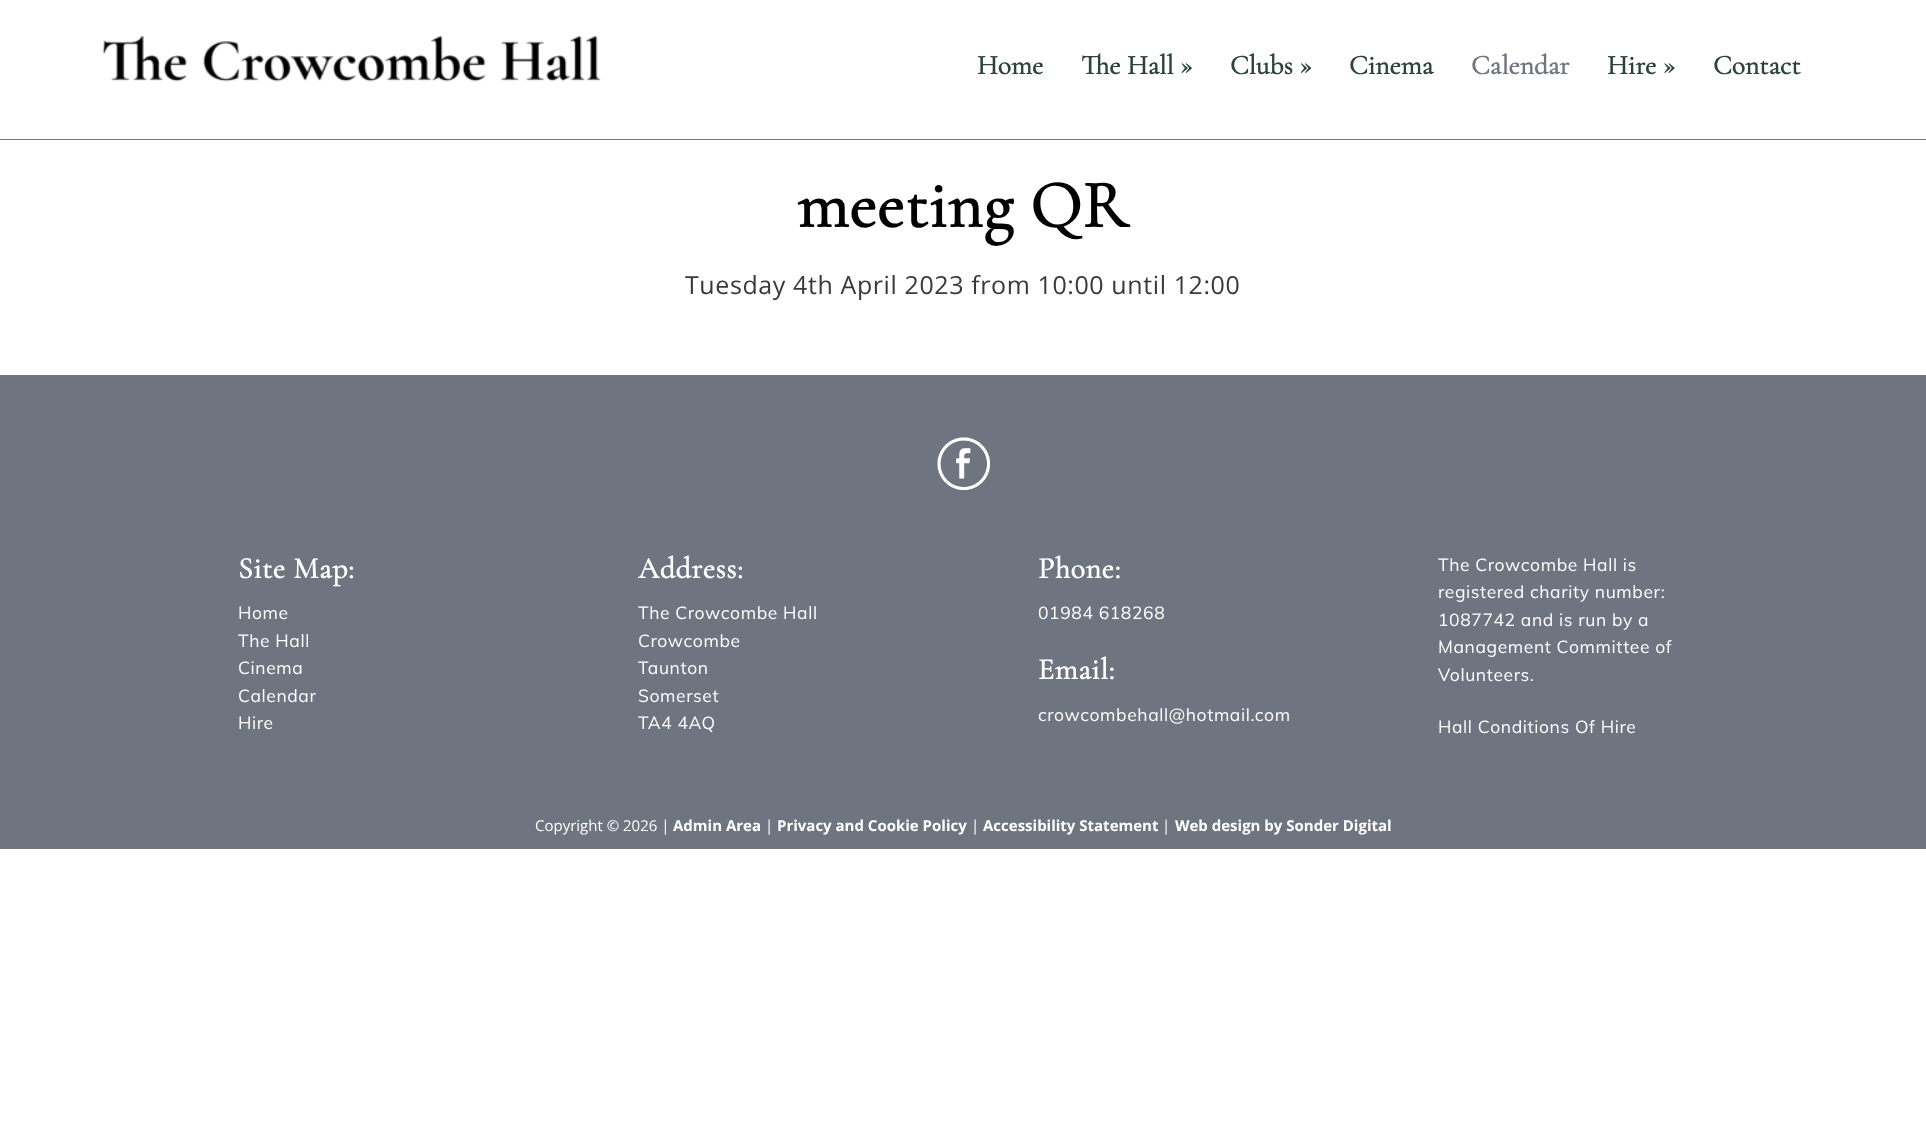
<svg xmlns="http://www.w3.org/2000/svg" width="1926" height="1136">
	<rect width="100%" height="100%" fill="#FFFFFF" />
	<rect x="0" y="139" width="1926" height="1" fill="#70757F" />
	<image x="102" y="35" width="499" height="47" href="assets/img1.png" />
	<g font-family="Cormorant Garamond" font-size="27.5" font-weight="700" fill="#2D4437">
		<text x="977" y="74">Home</text>
		<text x="1081" y="74">The Hall »</text>
		<text x="1230" y="74">Clubs »</text>
		<text x="1349" y="74">Cinema</text>
	</g>
	<text x="1471" y="74" font-family="Cormorant Garamond" font-size="27.5" font-weight="700" fill="#70757F">Calendar</text>
	<g font-family="Cormorant Garamond" font-size="27.5" font-weight="700" fill="#2D4437">
		<text x="1607" y="74">Hire »</text>
		<text x="1713" y="74">Contact</text>
	</g>
	<text x="797" y="227" font-family="Cormorant Garamond" font-size="67.5" font-weight="700" letter-spacing="0.6" fill="#000000">meeting QR</text>
	<text x="685" y="294" font-family="Open Sans" font-size="25" letter-spacing="0.6" fill="#36393E">Tuesday 4th April 2023 from 10:00 until 12:00</text>
	<rect x="0" y="375" width="1926" height="474" fill="#6F7580" />
	<image x="937" y="437" width="53" height="53" href="assets/img2.png" />
	<text x="238" y="578" font-family="Cormorant Garamond" font-size="30" font-weight="700" letter-spacing="0.6" fill="#FFFFFF">Site Map:</text>
	<g font-family="Muli" font-size="17.5" letter-spacing="0.6" fill="#FFFFFF">
		<text x="238" y="619">Home</text>
		<text x="238" y="647">The Hall</text>
		<text x="238" y="674">Cinema</text>
		<text x="238" y="702">Calendar</text>
		<text x="238" y="729">Hire</text>
	</g>
	<text x="638" y="578" font-family="Cormorant Garamond" font-size="30" font-weight="700" letter-spacing="0.6" fill="#FFFFFF">Address:</text>
	<g font-family="Muli" font-size="17.5" letter-spacing="0.6" fill="#FFFFFF">
		<text x="638" y="619">The Crowcombe Hall</text>
		<text x="638" y="647">Crowcombe</text>
		<text x="638" y="674">Taunton</text>
		<text x="638" y="702">Somerset</text>
		<text x="638" y="729">TA4 4AQ</text>
	</g>
	<text x="1038" y="578" font-family="Cormorant Garamond" font-size="30" font-weight="700" letter-spacing="0.6" fill="#FFFFFF">Phone:</text>
	<text x="1038" y="619" font-family="Muli" font-size="17.5" letter-spacing="0.6" fill="#FFFFFF">01984 618268</text>
	<text x="1038" y="679" font-family="Cormorant Garamond" font-size="30" font-weight="700" letter-spacing="0.6" fill="#FFFFFF">Email:</text>
	<g font-family="Muli" font-size="17.5" letter-spacing="0.6" fill="#FFFFFF">
		<text x="1038" y="721">crowcombehall@hotmail.com</text>
		<text x="1438" y="571">The Crowcombe Hall is</text>
		<text x="1438" y="598">registered charity number:</text>
		<text x="1438" y="626">1087742 and is run by a</text>
		<text x="1438" y="653">Management Committee of</text>
		<text x="1438" y="681">Volunteers.</text>
		<text x="1438" y="733">Hall Conditions Of Hire</text>
	</g>
	<text x="535" y="831" font-family="Open Sans" font-size="15" fill="#FFFFFF">Copyright © 2026 |</text>
	<text x="673" y="831" font-family="Open Sans" font-size="15" font-weight="700" fill="#FFFFFF">Admin Area</text>
	<text x="765" y="831" font-family="Open Sans" font-size="15" fill="#FFFFFF">|</text>
	<text x="777" y="831" font-family="Open Sans" font-size="15" font-weight="700" fill="#FFFFFF">Privacy and Cookie Policy</text>
	<text x="971" y="831" font-family="Open Sans" font-size="15" fill="#FFFFFF">|</text>
	<text x="983" y="831" font-family="Open Sans" font-size="15" font-weight="700" fill="#FFFFFF">Accessibility Statement</text>
	<text x="1162" y="831" font-family="Open Sans" font-size="15" fill="#FFFFFF">|</text>
	<text x="1175" y="831" font-family="Open Sans" font-size="15" font-weight="700" fill="#FFFFFF">Web design by Sonder Digital</text>
</svg>
